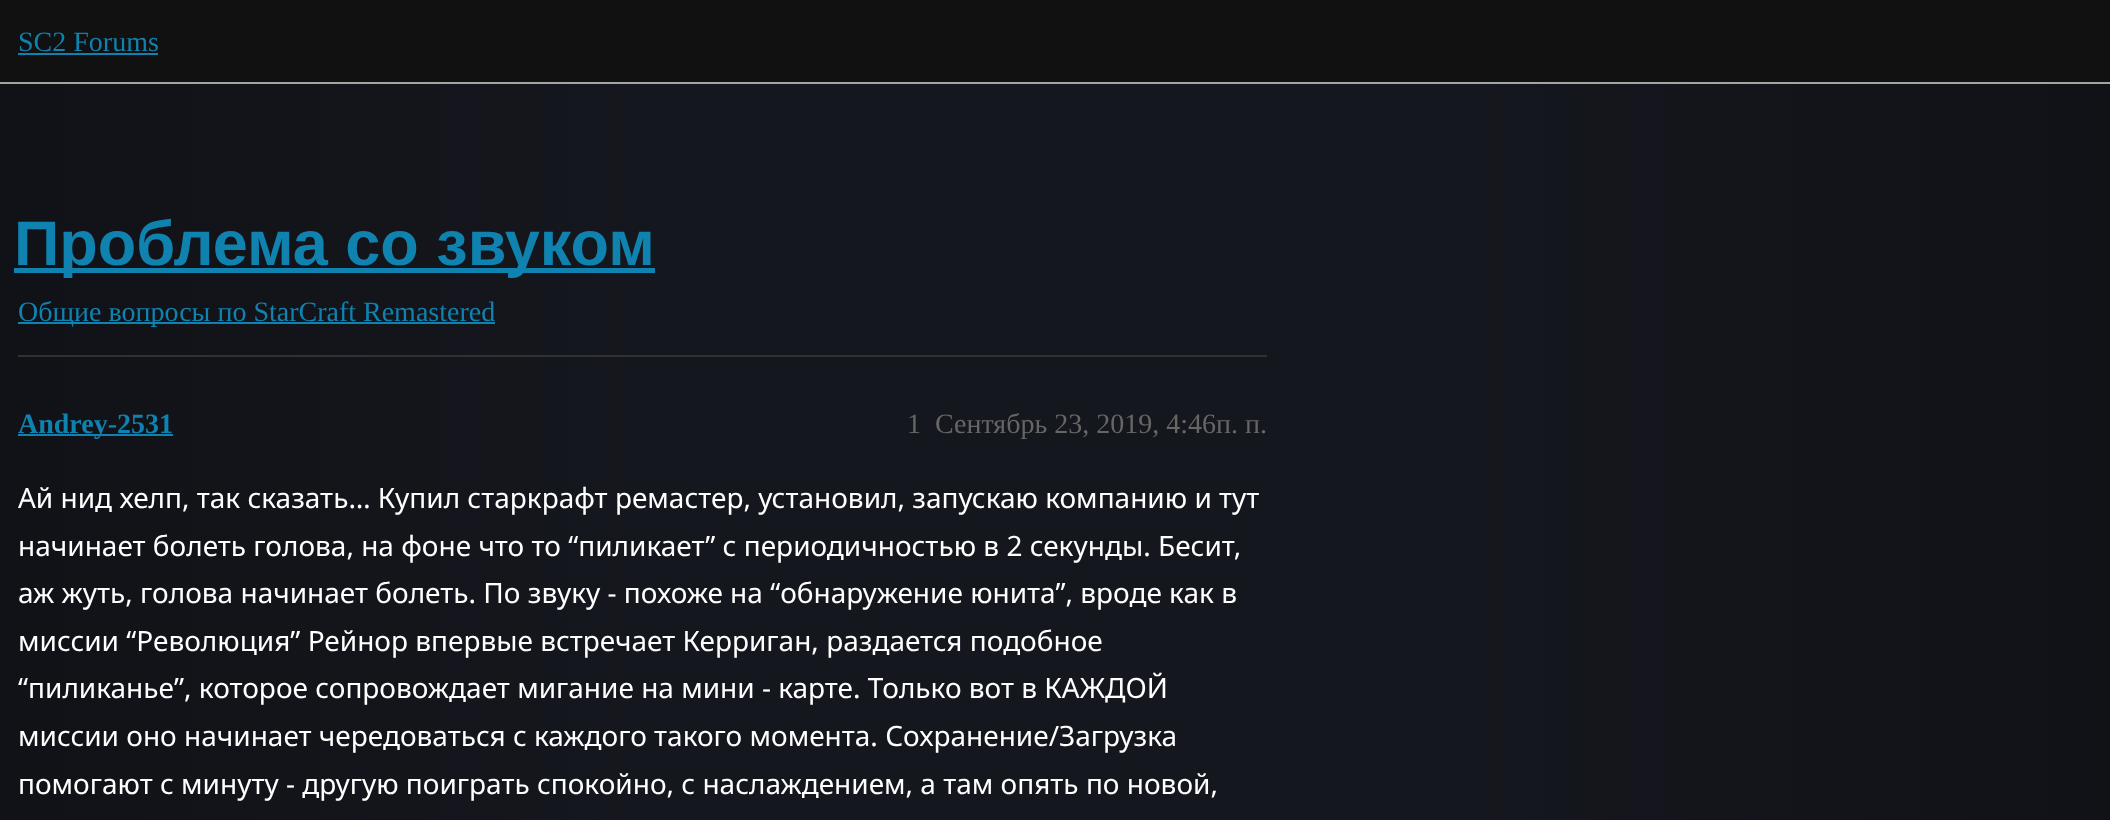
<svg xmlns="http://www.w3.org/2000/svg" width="2110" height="820">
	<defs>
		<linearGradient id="g1" gradientUnits="userSpaceOnUse" x1="0" y1="694" x2="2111" y2="694"><stop offset="0" stop-color="#111217" /><stop offset="0.3" stop-color="#15171E" /><stop offset="0.7" stop-color="#15171E" /><stop offset="1" stop-color="#111217" /></linearGradient>
	</defs>
	<rect width="100%" height="100%" fill="#FFFFFF" />
	<rect x="0" y="84" width="2110" height="736" fill="url(#g1)" />
	<rect x="0" y="0" width="2110" height="82" fill="#111111" />
	<rect x="0" y="82" width="2110" height="2" fill="#A4A4A4" />
	<text x="18" y="51" font-family="Liberation Serif" font-size="28" fill="#0F82AF">SC2 Forums</text>
	<rect x="18" y="53" width="140" height="2" fill="#0F82AF" />
	<rect x="14" y="268" width="641" height="5" fill="#0F82AF" />
	<text x="14" y="265" font-family="Liberation Sans" font-size="63" font-weight="700" fill="#0F82AF">Проблема со звуком</text>
	<rect x="18" y="322" width="477" height="2" fill="#0F82AF" />
	<text x="18" y="321" font-family="Liberation Serif" font-size="28" fill="#0F82AF">Общие вопросы по StarCraft Remastered</text>
	<rect x="18" y="355" width="1249" height="2" fill="#313131" />
	<rect x="18" y="434" width="155" height="2" fill="#0F82AF" />
	<text x="18" y="433" font-family="Liberation Serif" font-size="28" font-weight="700" fill="#0F82AF">Andrey-2531</text>
	<g font-family="Liberation Serif" font-size="28" fill="#666666">
		<text x="907" y="433">1</text>
		<text x="935" y="433">Сентябрь 23, 2019, 4:46п. п.</text>
	</g>
	<g font-family="Noto Sans" font-size="28" fill="#FFFFFF">
		<text x="18" y="508">Ай нид хелп, так сказать… Купил старкрафт ремастер, установил, запускаю компанию и тут</text>
		<text x="18" y="556">начинает болеть голова, на фоне что то “пиликает” с периодичностью в 2 секунды. Бесит,</text>
		<text x="18" y="603">аж жуть, голова начинает болеть. По звуку - похоже на “обнаружение юнита”, вроде как в</text>
		<text x="18" y="651">миссии “Революция” Рейнор впервые встречает Керриган, раздается подобное</text>
		<text x="18" y="698">“пиликанье”, которое сопровождает мигание на мини - карте. Только вот в КАЖДОЙ</text>
		<text x="18" y="746">миссии оно начинает чередоваться с каждого такого момента. Сохранение/Загрузка</text>
		<text x="18" y="794">помогают с минуту - другую поиграть спокойно, с наслаждением, а там опять по новой,</text>
	</g>
</svg>
